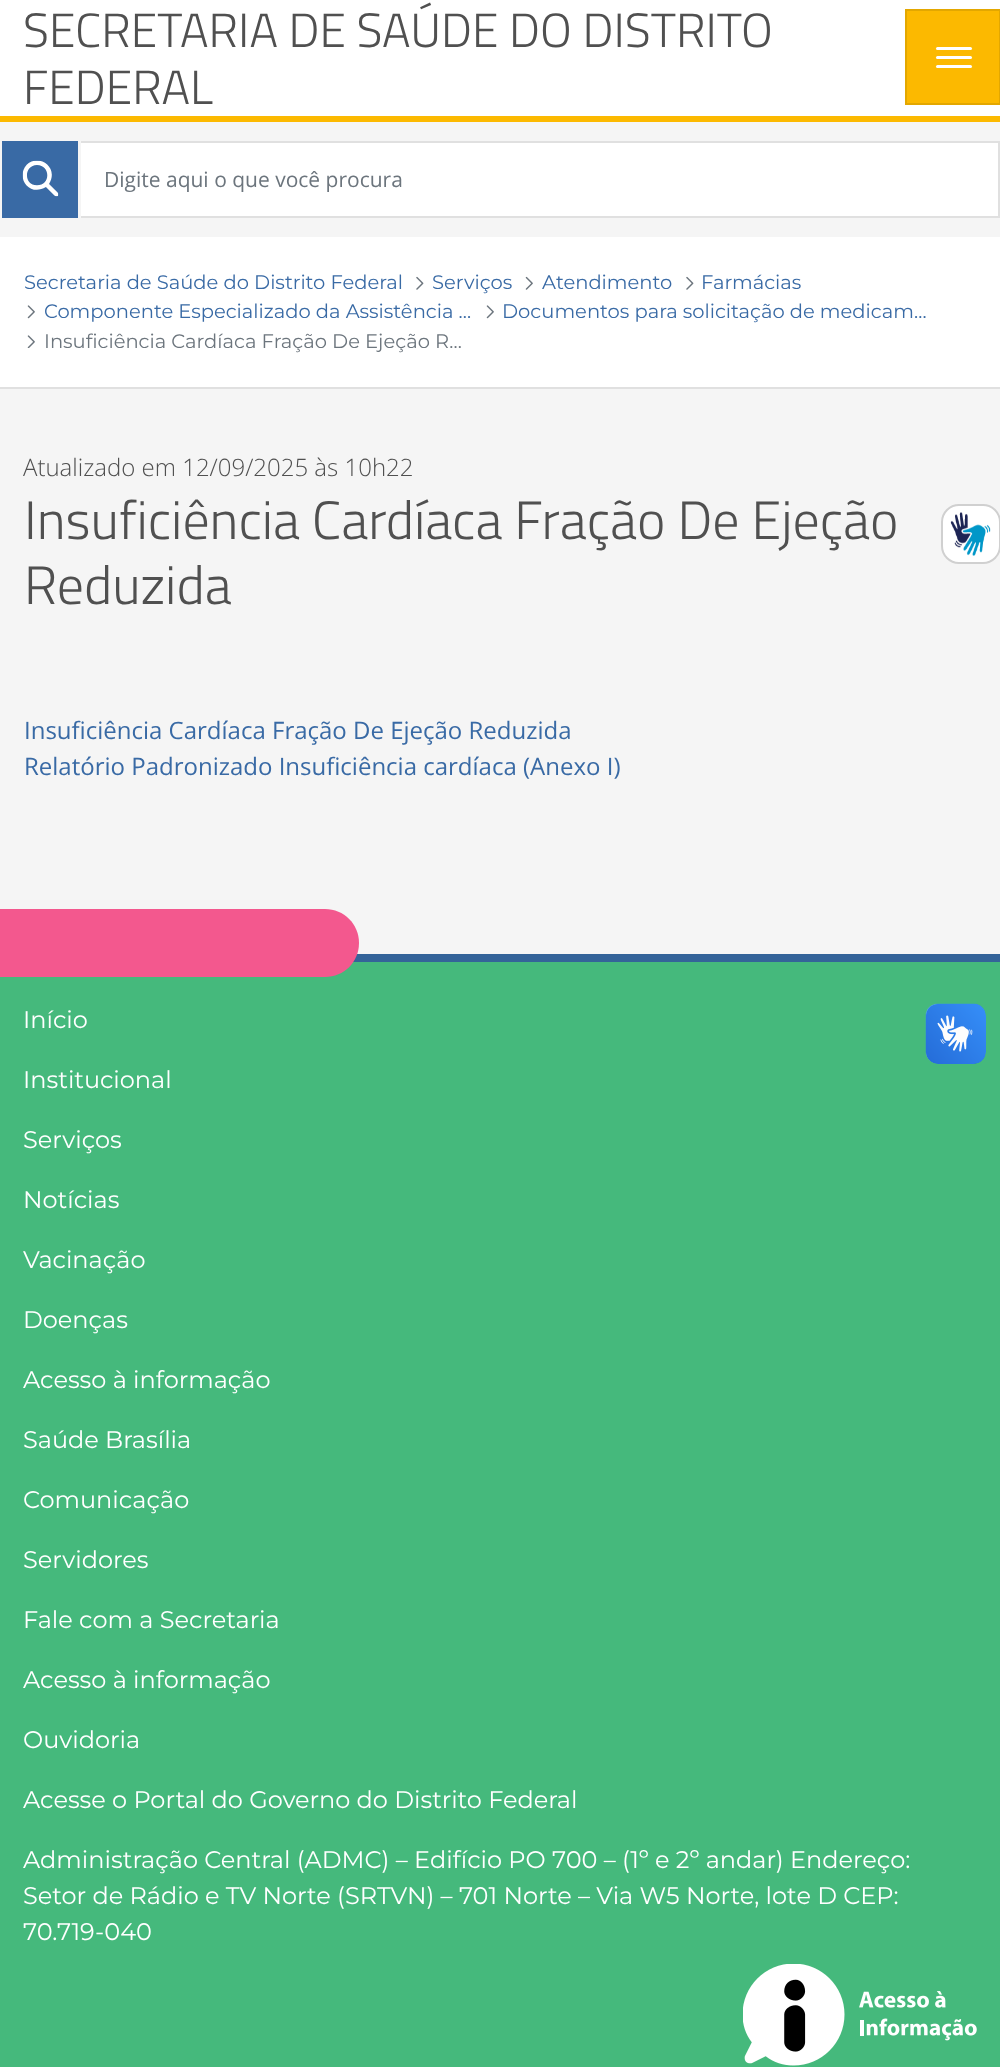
<svg xmlns="http://www.w3.org/2000/svg" width="1000" height="2067">
	<rect width="100%" height="100%" fill="#F5F5F5" />
	<rect x="0" y="0" width="1000" height="116" fill="#FFFFFF" />
	<g font-family="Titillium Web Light" font-size="48" font-weight="300" fill="#505050">
		<text x="23" y="47">SECRETARIA DE SAÚDE DO DISTRITO</text>
		<text x="23" y="104">FEDERAL</text>
	</g>
	<rect x="906" y="10" width="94" height="94" fill="#FCB900" stroke="#E3A700" stroke-width="2" />
	<rect x="936" y="47" width="36" height="3" rx="1.5" fill="#FFFFFF" />
	<rect x="936" y="56" width="36" height="3" rx="1.5" fill="#FFFFFF" />
	<rect x="936" y="65" width="36" height="3" rx="1.5" fill="#FFFFFF" />
	<rect x="0" y="116" width="1000" height="6" fill="#FCB900" />
	<rect x="2" y="141" width="76" height="77" fill="#396AA5" />
	<image x="22" y="160" width="37" height="37" href="assets/img1.png" />
	<rect x="81" y="143" width="917" height="73" fill="#FFFFFF" />
	<rect x="81" y="141" width="918" height="2" fill="#E0E0E0" />
	<rect x="998" y="141" width="2" height="77" fill="#E0E0E0" />
	<rect x="81" y="216" width="918" height="2" fill="#E0E0E0" />
	<text x="104" y="187" font-family="Open Sans" font-size="21" fill="#6C757D">Digite aqui o que você procura</text>
	<rect x="0" y="237" width="1000" height="150" fill="#FFFFFF" />
	<rect x="0" y="387" width="1000" height="2" fill="#E0E0E0" />
	<text x="24" y="289" font-family="Montserrat" font-size="19.5" font-weight="100" fill="#396AA5">Secretaria de Saúde do Distrito Federal</text>
	<image x="416" y="276" width="8" height="14" href="assets/img2.png" />
	<text x="432" y="289" font-family="Montserrat" font-size="19.5" font-weight="100" fill="#396AA5">Serviços</text>
	<image x="525" y="276" width="8" height="14" href="assets/img3.png" />
	<text x="542" y="289" font-family="Montserrat" font-size="19.5" font-weight="100" fill="#396AA5">Atendimento</text>
	<image x="686" y="276" width="8" height="14" href="assets/img2.png" />
	<text x="701" y="289" font-family="Montserrat" font-size="19.5" font-weight="100" fill="#396AA5">Farmácias</text>
	<image x="27" y="305" width="8" height="14" href="assets/img4.png" />
	<text x="44" y="318" font-family="Montserrat" font-size="19.5" font-weight="100" fill="#396AA5">Componente Especializado da Assistência …</text>
	<image x="486" y="305" width="8" height="14" href="assets/img4.png" />
	<text x="502" y="318" font-family="Montserrat" font-size="19.5" font-weight="100" fill="#396AA5">Documentos para solicitação de medicam…</text>
	<image x="27" y="335" width="8" height="13" href="assets/img5.png" />
	<text x="44" y="348" font-family="Montserrat" font-size="19.5" font-weight="100" fill="#6C757D">Insuficiência Cardíaca Fração De Ejeção R…</text>
	<text x="23" y="476" font-family="Open Sans" font-size="24" font-weight="300" fill="#505050">Atualizado em 12/09/2025 às 10h22</text>
	<g font-family="Titillium Web Light" font-size="54" font-weight="300" fill="#505050">
		<text x="24" y="539">Insuficiência Cardíaca Fração De Ejeção</text>
		<text x="24" y="604">Reduzida</text>
	</g>
	<g font-family="Open Sans" font-size="24" fill="#396AA5">
		<text x="24" y="739">Insuficiência Cardíaca Fração De Ejeção Reduzida</text>
		<text x="24" y="775">Relatório Padronizado Insuficiência cardíaca (Anexo I)</text>
	</g>
	<rect x="0" y="962" width="1000" height="1105" fill="#45B97C" />
	<rect x="353" y="954" width="647" height="8" fill="#346399" />
	<g font-family="Montserrat" font-size="24" font-weight="100" fill="#FFFFFF">
		<text x="23" y="1028">Início</text>
		<text x="23" y="1088">Institucional</text>
		<text x="23" y="1148">Serviços</text>
		<text x="23" y="1208">Notícias</text>
		<text x="23" y="1268">Vacinação</text>
		<text x="23" y="1328">Doenças</text>
		<text x="23" y="1388">Acesso à informação</text>
		<text x="23" y="1448">Saúde Brasília</text>
		<text x="23" y="1508">Comunicação</text>
		<text x="23" y="1568">Servidores</text>
		<text x="23" y="1628">Fale com a Secretaria</text>
		<text x="23" y="1688">Acesso à informação</text>
		<text x="23" y="1748">Ouvidoria</text>
		<text x="23" y="1808">Acesse o Portal do Governo do Distrito Federal</text>
		<text x="23" y="1868">Administração Central (ADMC) – Edifício PO 700 – (1º e 2º andar) Endereço:</text>
		<text x="23" y="1904">Setor de Rádio e TV Norte (SRTVN) – 701 Norte – Via W5 Norte, lote D CEP:</text>
		<text x="23" y="1940">70.719-040</text>
	</g>
	<image x="743" y="1964" width="234" height="102" href="assets/img6.png" />
	<rect x="942" y="505" width="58" height="58" rx="17" fill="#FFFFFF" stroke="#D0D0D0" stroke-width="2" />
	<image x="950" y="512" width="41" height="44" href="assets/img7.png" />
	<path d="M-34 909H325C344 909 359 924 359 943C359 962 344 977 325 977H-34Z" fill="#F3588E" />
	<image x="925" y="1003" width="61" height="61" href="assets/img8.png" />
	<image x="926" y="1004" width="60" height="60" href="assets/img9.png" />
</svg>
